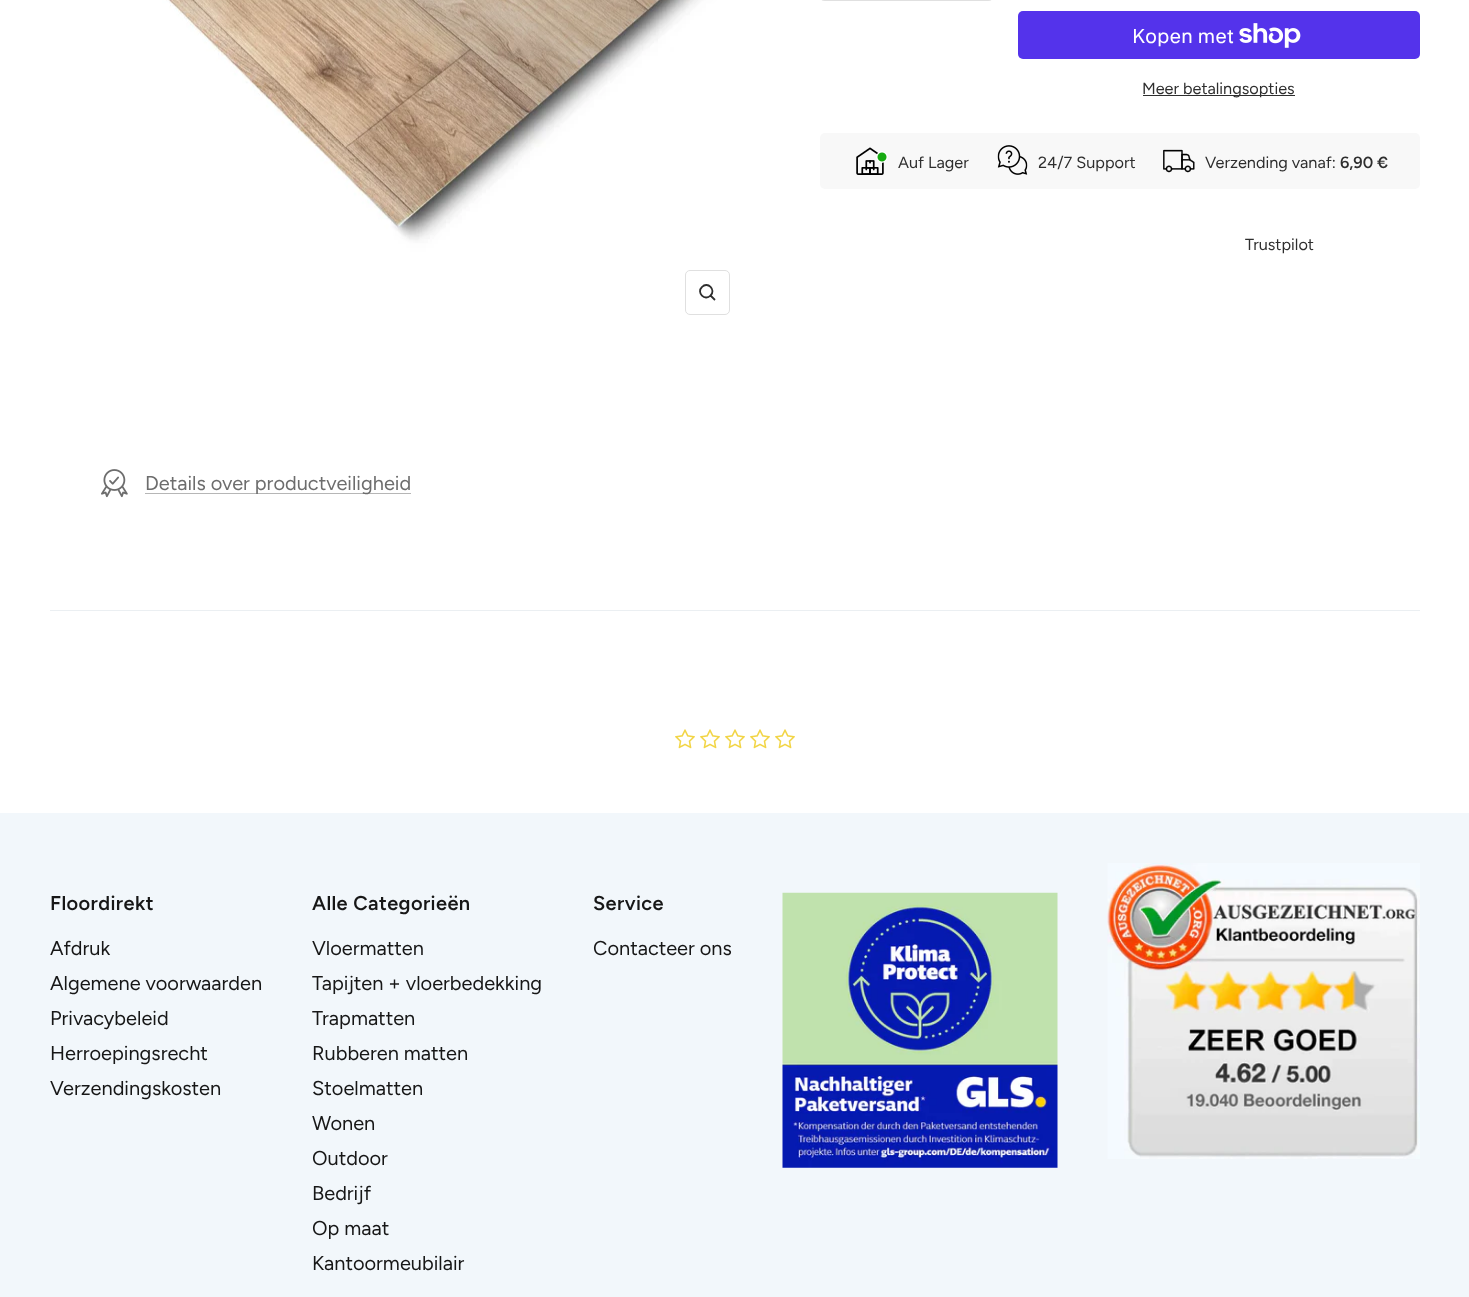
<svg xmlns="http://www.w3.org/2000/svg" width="1469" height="1297">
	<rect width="100%" height="100%" fill="#FFFFFF" />
	<image x="50" y="0" width="700" height="335" href="assets/img1.png" />
	<rect x="685.5" y="270.5" width="44" height="44" rx="4.5" fill="none" stroke="#E0E0E0" />
	<path d="M710.5 295.5C716.5 290 707.5 281 702 287C696 292.5 705 301.5 710.5 295.5ZM710.5 295.5L715 300" fill="none" stroke="#2E2E2E" stroke-width="1.8" />
	<rect x="820.5" y="-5.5" width="172" height="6" rx="4.5" fill="none" stroke="#E0E0E0" />
	<rect x="1018" y="11" width="402" height="48" rx="5" fill="#5433EB" />
	<text x="1132" y="43" font-family="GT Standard" font-size="20" fill="#FFFFFF">Kopen met</text>
	<image x="1239" y="23" width="62" height="25" href="assets/img2.png" />
	<rect x="1143" y="95" width="152" height="1" fill="#2E2E2E" />
	<text x="1142" y="94" font-family="Figtree" font-size="16.25" fill="#2E2E2E">Meer betalingsopties</text>
	<rect x="820" y="133" width="600" height="56" rx="5" fill="#F8F8F8" />
	<image x="856" y="147" width="32" height="28" href="assets/img3.png" />
	<text x="898" y="168" font-family="Figtree" font-size="16.25" fill="#2E2E2E">Auf Lager</text>
	<image x="997" y="145" width="31" height="30" href="assets/img4.png" />
	<text x="1038" y="168" font-family="Figtree" font-size="16.25" fill="#2E2E2E">24/7 Support</text>
	<image x="1163" y="149" width="32" height="24" href="assets/img5.png" />
	<text x="1205" y="168" font-family="Figtree" font-size="16.25" fill="#2E2E2E">Verzending vanaf:</text>
	<text x="1340" y="168" font-family="Figtree" font-size="16.25" font-weight="600" fill="#2E2E2E">6,90 €</text>
	<text x="1245" y="250" font-family="Figtree" font-size="16.25" fill="#2E2E2E">Trustpilot</text>
	<image x="101" y="469" width="27" height="29" href="assets/img6.png" />
	<rect x="145" y="493" width="266" height="1" fill="#B6B6B6" />
	<text x="145" y="490" font-family="Figtree" font-size="20" fill="#6D6D6D">Details over productveiligheid</text>
	<rect x="50" y="610" width="1370" height="1" fill="#EBEFF2" />
	<image x="675" y="729" width="20" height="20" href="assets/img7.png" />
	<image x="700" y="729" width="20" height="20" href="assets/img7.png" />
	<image x="725" y="729" width="20" height="20" href="assets/img7.png" />
	<image x="750" y="729" width="20" height="20" href="assets/img7.png" />
	<image x="775" y="729" width="20" height="20" href="assets/img7.png" />
	<rect x="0" y="813" width="1469" height="484" fill="#F2F7FB" />
	<text x="50" y="910" font-family="Figtree" font-size="20" font-weight="600" letter-spacing="0.4" fill="#171717">Floordirekt</text>
	<g font-family="Figtree" font-size="20" fill="#171717">
		<text x="50" y="955">Afdruk</text>
		<text x="50" y="990">Algemene voorwaarden</text>
		<text x="50" y="1025">Privacybeleid</text>
		<text x="50" y="1060">Herroepingsrecht</text>
		<text x="50" y="1095">Verzendingskosten</text>
	</g>
	<text x="312" y="910" font-family="Figtree" font-size="20" font-weight="600" letter-spacing="0.4" fill="#171717">Alle Categorieën</text>
	<g font-family="Figtree" font-size="20" fill="#171717">
		<text x="312" y="955">Vloermatten</text>
		<text x="312" y="990">Tapijten + vloerbedekking</text>
		<text x="312" y="1025">Trapmatten</text>
		<text x="312" y="1060">Rubberen matten</text>
		<text x="312" y="1095">Stoelmatten</text>
		<text x="312" y="1130">Wonen</text>
		<text x="312" y="1165">Outdoor</text>
		<text x="312" y="1200">Bedrijf</text>
		<text x="312" y="1235">Op maat</text>
		<text x="312" y="1270">Kantoormeubilair</text>
	</g>
	<text x="593" y="910" font-family="Figtree" font-size="20" font-weight="600" letter-spacing="0.4" fill="#171717">Service</text>
	<text x="593" y="955" font-family="Figtree" font-size="20" fill="#171717">Contacteer ons</text>
	<image x="782" y="892" width="276" height="276" href="assets/img8.png" />
	<image x="1107" y="863" width="313" height="296" href="assets/img9.png" />
</svg>
